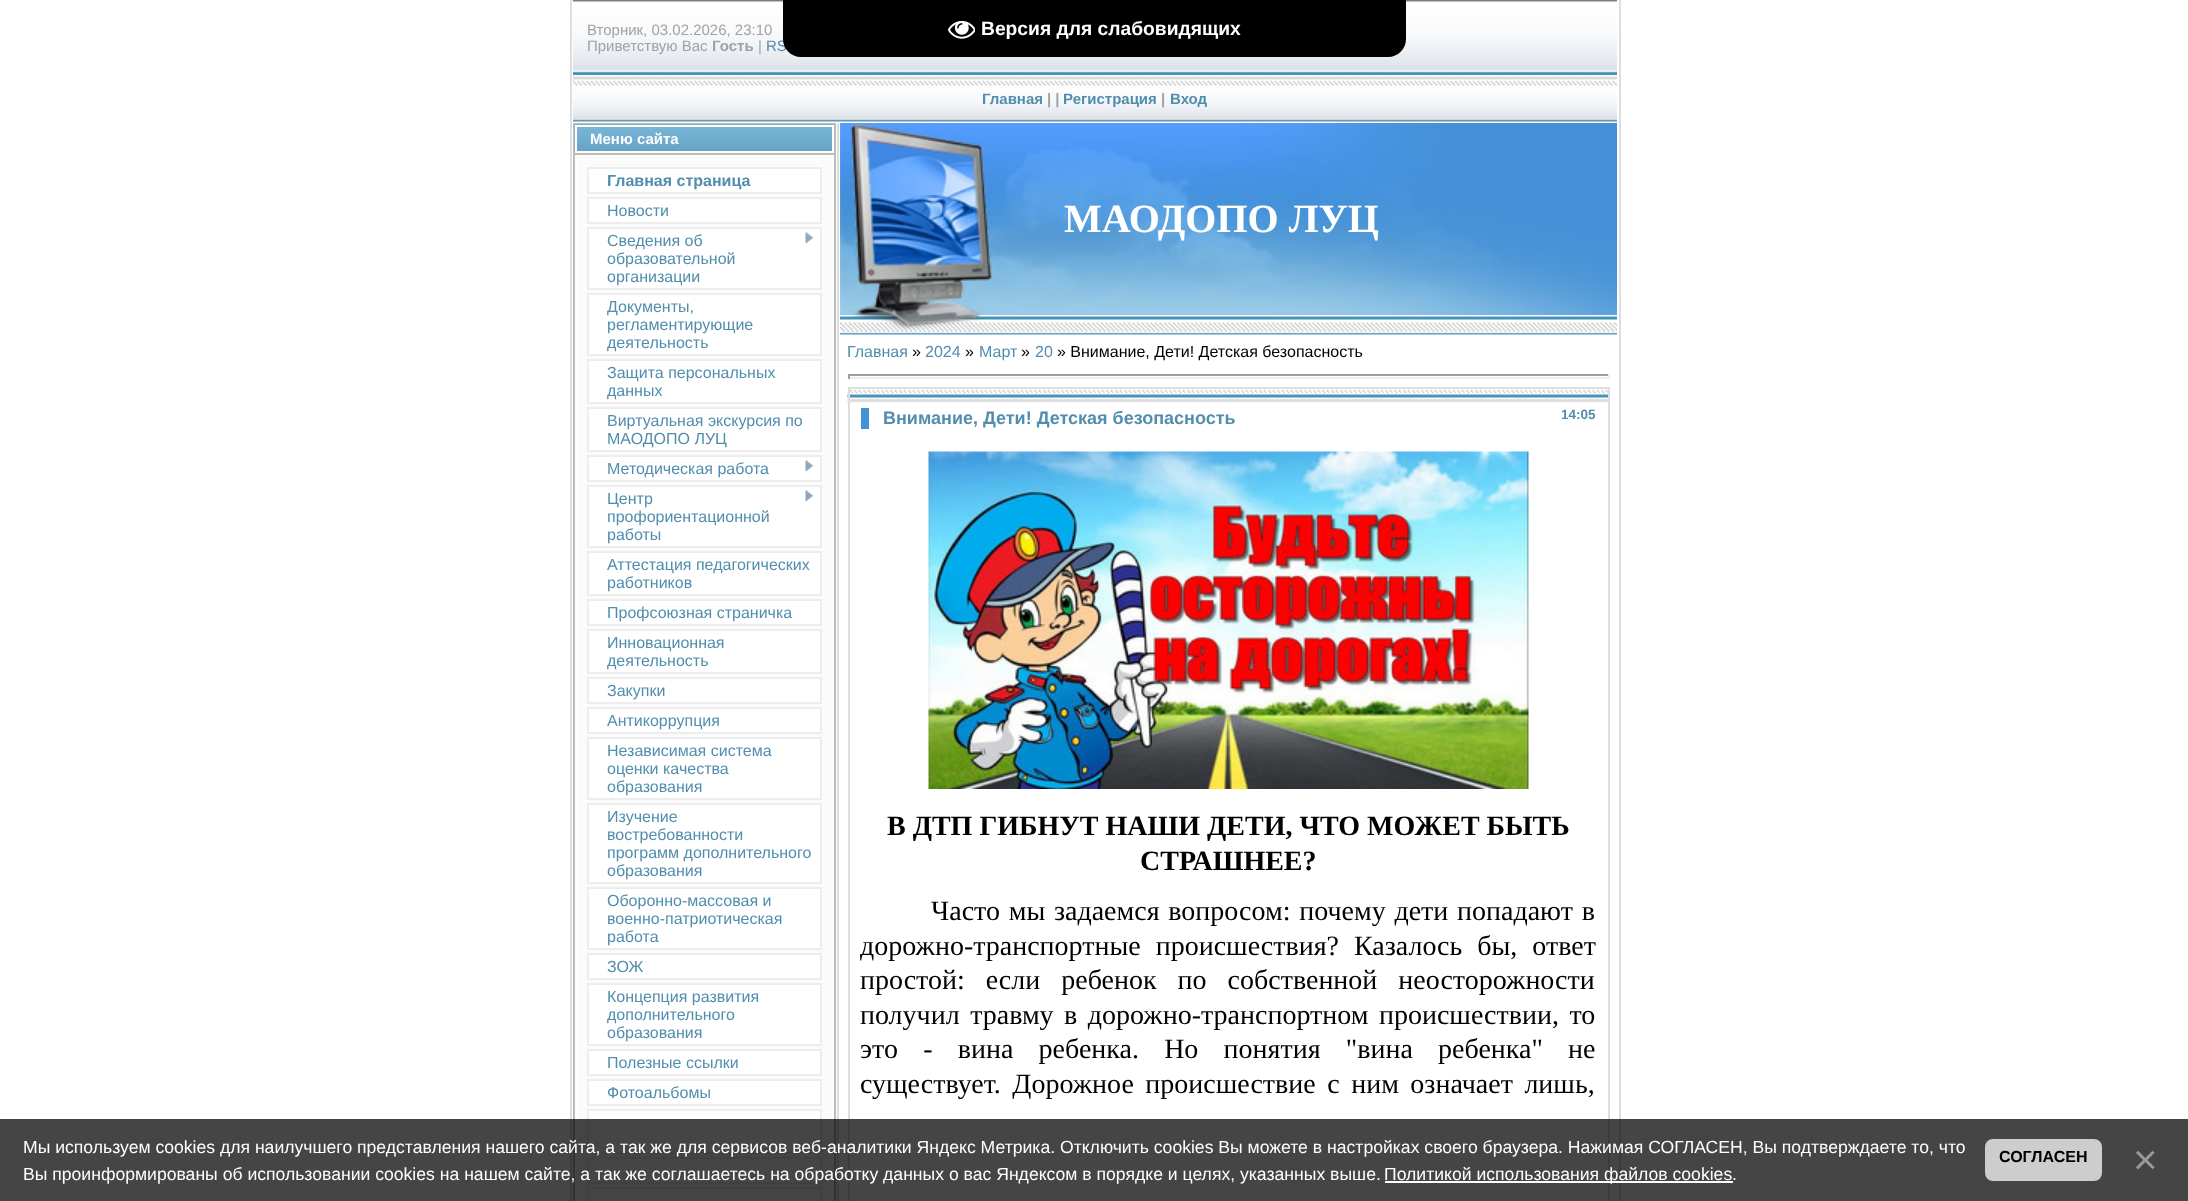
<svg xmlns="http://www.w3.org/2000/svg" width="2188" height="1201">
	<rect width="100%" height="100%" fill="#FFFFFF" />
	<image x="573" y="0" width="1044" height="75" href="assets/img2.png" />
	<text x="766" y="51" font-family="Liberation Sans" font-size="15" fill="#518EAD">RS</text>
	<path d="M783 0H1406V39C1406 49 1398 57 1388 57H801C791 57 783 49 783 39Z" fill="#000000" />
	<image x="948" y="20" width="27" height="19" href="assets/img1.png" />
	<text x="981" y="35" font-family="Liberation Sans" font-size="19.25" font-weight="700" fill="#FFFFFF">Версия для слабовидящих</text>
	<rect x="1619" y="0" width="2" height="1201" fill="#DEDEDE" />
	<rect x="570" y="0" width="2" height="1201" fill="#DEDEDE" />
	<g font-family="Liberation Sans" font-size="15" fill="#A1A1A1">
		<text x="587" y="35">Вторник, 03.02.2026, 23:10</text>
		<text x="587" y="51">Приветствую Вас</text>
	</g>
	<text x="712" y="51" font-family="Liberation Sans" font-size="15" font-weight="700" fill="#A1A1A1">Гость</text>
	<text x="758" y="51" font-family="Liberation Sans" font-size="15" fill="#A1A1A1">|</text>
	<image x="573" y="76" width="1044" height="46" href="assets/img3.png" />
	<text x="982" y="104" font-family="Liberation Sans" font-size="15" font-weight="700" fill="#518EAD">Главная</text>
	<text x="1047" y="104" font-family="Liberation Sans" font-size="15" font-weight="700" fill="#A1A1A1">| |</text>
	<text x="1063" y="104" font-family="Liberation Sans" font-size="15" font-weight="700" fill="#518EAD">Регистрация</text>
	<text x="1161" y="104" font-family="Liberation Sans" font-size="15" font-weight="700" fill="#A1A1A1">|</text>
	<text x="1170" y="104" font-family="Liberation Sans" font-size="15" font-weight="700" fill="#518EAD">Вход</text>
	<rect x="573" y="123" width="263" height="1078" fill="#BCBCBC" />
	<image x="574" y="124" width="260" height="29" href="assets/img4.png" />
	<rect x="576" y="126" width="257" height="26" fill="none" stroke="#FFFFFF" stroke-width="2" />
	<text x="590" y="144" font-family="Liberation Sans" font-size="15" font-weight="700" fill="#FFFFFF">Меню сайта</text>
	<rect x="576" y="156" width="257" height="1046" fill="#FBFBFC" stroke="#FFFFFF" stroke-width="2" />
	<rect x="588" y="168" width="233" height="25" fill="#FFFFFF" stroke="#EDEDED" stroke-width="2" />
	<text x="607" y="186" font-family="Liberation Sans" font-size="16" font-weight="700" fill="#518EAD">Главная страница</text>
	<rect x="588" y="198" width="233" height="25" fill="#FFFFFF" stroke="#EDEDED" stroke-width="2" />
	<text x="607" y="216" font-family="Liberation Sans" font-size="16" fill="#518EAD">Новости</text>
	<rect x="588" y="228" width="233" height="61" fill="#FFFFFF" stroke="#EDEDED" stroke-width="2" />
	<text x="607" y="246" font-family="Liberation Sans" font-size="16" fill="#518EAD">Сведения об</text>
	<image x="805" y="232" width="8" height="11" href="assets/img5.png" />
	<g font-family="Liberation Sans" font-size="16" fill="#518EAD">
		<text x="607" y="264">образовательной</text>
		<text x="607" y="282">организации</text>
	</g>
	<rect x="588" y="294" width="233" height="61" fill="#FFFFFF" stroke="#EDEDED" stroke-width="2" />
	<g font-family="Liberation Sans" font-size="16" fill="#518EAD">
		<text x="607" y="312">Документы,</text>
		<text x="607" y="330">регламентирующие</text>
		<text x="607" y="348">деятельность</text>
	</g>
	<rect x="588" y="360" width="233" height="43" fill="#FFFFFF" stroke="#EDEDED" stroke-width="2" />
	<g font-family="Liberation Sans" font-size="16" fill="#518EAD">
		<text x="607" y="378">Защита персональных</text>
		<text x="607" y="396">данных</text>
	</g>
	<rect x="588" y="408" width="233" height="43" fill="#FFFFFF" stroke="#EDEDED" stroke-width="2" />
	<g font-family="Liberation Sans" font-size="16" fill="#518EAD">
		<text x="607" y="426">Виртуальная экскурсия по</text>
		<text x="607" y="444">МАОДОПО ЛУЦ</text>
	</g>
	<rect x="588" y="456" width="233" height="25" fill="#FFFFFF" stroke="#EDEDED" stroke-width="2" />
	<text x="607" y="474" font-family="Liberation Sans" font-size="16" fill="#518EAD">Методическая работа</text>
	<image x="805" y="460" width="8" height="11" href="assets/img5.png" />
	<rect x="588" y="486" width="233" height="61" fill="#FFFFFF" stroke="#EDEDED" stroke-width="2" />
	<text x="607" y="504" font-family="Liberation Sans" font-size="16" fill="#518EAD">Центр</text>
	<image x="805" y="490" width="8" height="11" href="assets/img5.png" />
	<g font-family="Liberation Sans" font-size="16" fill="#518EAD">
		<text x="607" y="522">профориентационной</text>
		<text x="607" y="540">работы</text>
	</g>
	<rect x="588" y="552" width="233" height="43" fill="#FFFFFF" stroke="#EDEDED" stroke-width="2" />
	<g font-family="Liberation Sans" font-size="16" fill="#518EAD">
		<text x="607" y="570">Аттестация педагогических</text>
		<text x="607" y="588">работников</text>
	</g>
	<rect x="588" y="600" width="233" height="25" fill="#FFFFFF" stroke="#EDEDED" stroke-width="2" />
	<text x="607" y="618" font-family="Liberation Sans" font-size="16" fill="#518EAD">Профсоюзная страничка</text>
	<rect x="588" y="630" width="233" height="43" fill="#FFFFFF" stroke="#EDEDED" stroke-width="2" />
	<g font-family="Liberation Sans" font-size="16" fill="#518EAD">
		<text x="607" y="648">Инновационная</text>
		<text x="607" y="666">деятельность</text>
	</g>
	<rect x="588" y="678" width="233" height="25" fill="#FFFFFF" stroke="#EDEDED" stroke-width="2" />
	<text x="607" y="696" font-family="Liberation Sans" font-size="16" fill="#518EAD">Закупки</text>
	<rect x="588" y="708" width="233" height="25" fill="#FFFFFF" stroke="#EDEDED" stroke-width="2" />
	<text x="607" y="726" font-family="Liberation Sans" font-size="16" fill="#518EAD">Антикоррупция</text>
	<rect x="588" y="738" width="233" height="61" fill="#FFFFFF" stroke="#EDEDED" stroke-width="2" />
	<g font-family="Liberation Sans" font-size="16" fill="#518EAD">
		<text x="607" y="756">Независимая система</text>
		<text x="607" y="774">оценки качества</text>
		<text x="607" y="792">образования</text>
	</g>
	<rect x="588" y="804" width="233" height="79" fill="#FFFFFF" stroke="#EDEDED" stroke-width="2" />
	<g font-family="Liberation Sans" font-size="16" fill="#518EAD">
		<text x="607" y="822">Изучение</text>
		<text x="607" y="840">востребованности</text>
		<text x="607" y="858">программ дополнительного</text>
		<text x="607" y="876">образования</text>
	</g>
	<rect x="588" y="888" width="233" height="61" fill="#FFFFFF" stroke="#EDEDED" stroke-width="2" />
	<g font-family="Liberation Sans" font-size="16" fill="#518EAD">
		<text x="607" y="906">Оборонно-массовая и</text>
		<text x="607" y="924">военно-патриотическая</text>
		<text x="607" y="942">работа</text>
	</g>
	<rect x="588" y="954" width="233" height="25" fill="#FFFFFF" stroke="#EDEDED" stroke-width="2" />
	<text x="607" y="972" font-family="Liberation Sans" font-size="16" fill="#518EAD">ЗОЖ</text>
	<rect x="588" y="984" width="233" height="61" fill="#FFFFFF" stroke="#EDEDED" stroke-width="2" />
	<g font-family="Liberation Sans" font-size="16" fill="#518EAD">
		<text x="607" y="1002">Концепция развития</text>
		<text x="607" y="1020">дополнительного</text>
		<text x="607" y="1038">образования</text>
	</g>
	<rect x="588" y="1050" width="233" height="25" fill="#FFFFFF" stroke="#EDEDED" stroke-width="2" />
	<text x="607" y="1068" font-family="Liberation Sans" font-size="16" fill="#518EAD">Полезные ссылки</text>
	<rect x="588" y="1080" width="233" height="25" fill="#FFFFFF" stroke="#EDEDED" stroke-width="2" />
	<text x="607" y="1098" font-family="Liberation Sans" font-size="16" fill="#518EAD">Фотоальбомы</text>
	<rect x="588" y="1110" width="233" height="43" fill="#FFFFFF" stroke="#EDEDED" stroke-width="2" />
	<rect x="588" y="1158" width="233" height="25" fill="#FFFFFF" stroke="#EDEDED" stroke-width="2" />
	<rect x="588" y="1188" width="233" height="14" fill="#FFFFFF" stroke="#EDEDED" stroke-width="2" />
	<rect x="837" y="123" width="2" height="1078" fill="#DEDEDE" />
	<image x="840" y="123" width="777" height="192" href="assets/img6.png" />
	<text x="1064" y="232" font-family="Liberation Serif" font-size="40" font-weight="700" fill="#FFFFFF">МАОДОПО ЛУЦ</text>
	<image x="840" y="315" width="777" height="20" href="assets/img7.png" />
	<image x="840" y="315" width="153" height="17" href="assets/img8.png" />
	<text x="847" y="357" font-family="Liberation Sans" font-size="16" fill="#518EAD">Главная</text>
	<text x="912" y="357" font-family="Liberation Sans" font-size="16" fill="#000000">»</text>
	<text x="925" y="357" font-family="Liberation Sans" font-size="16" fill="#518EAD">2024</text>
	<text x="965" y="357" font-family="Liberation Sans" font-size="16" fill="#000000">»</text>
	<text x="979" y="357" font-family="Liberation Sans" font-size="16" fill="#518EAD">Март</text>
	<text x="1021" y="357" font-family="Liberation Sans" font-size="16" fill="#000000">»</text>
	<text x="1035" y="357" font-family="Liberation Sans" font-size="16" fill="#518EAD">20</text>
	<text x="1057" y="357" font-family="Liberation Sans" font-size="16" fill="#000000">» Внимание, Дети! Детская безопасность</text>
	<rect x="848" y="374" width="762" height="2" fill="#9F9F9F" />
	<rect x="1608" y="374" width="2" height="5" fill="#EEEEEE" />
	<rect x="848" y="377" width="762" height="2" fill="#EEEEEE" />
	<rect x="848" y="374" width="2" height="5" fill="#9F9F9F" />
	<image x="847" y="389" width="761" height="14" href="assets/img9.png" />
	<rect x="849" y="388" width="760" height="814" fill="none" stroke="#DEDEDE" stroke-width="2" />
	<rect x="861" y="408" width="8" height="21" fill="#4491D7" />
	<text x="883" y="424" font-family="Liberation Sans" font-size="18" font-weight="700" fill="#518EAD">Внимание, Дети! Детская безопасность</text>
	<text x="1561" y="419" font-family="Liberation Sans" font-size="13.5" font-weight="700" fill="#518EAD">14:05</text>
	<image x="928" y="451" width="601" height="338" href="assets/img10.png" />
	<g font-family="Liberation Serif" font-size="28" font-weight="700" fill="#000000">
		<text x="887" y="835">В ДТП ГИБНУТ НАШИ ДЕТИ, ЧТО МОЖЕТ БЫТЬ</text>
		<text x="1140" y="870">СТРАШНЕЕ?</text>
	</g>
	<g font-family="Liberation Serif" font-size="28" fill="#000000">
		<text x="931" y="920" word-spacing="1.75">Часто мы задаемся вопросом: почему дети попадают в</text>
		<text x="860" y="955" word-spacing="8">дорожно-транспортные происшествия? Казалось бы, ответ</text>
		<text x="860" y="989" word-spacing="14">простой: если ребенок по собственной неосторожности</text>
		<text x="860" y="1024" word-spacing="3.5">получил травму в дорожно-транспортном происшествии, то</text>
		<text x="860" y="1058" word-spacing="18.25">это - вина ребенка. Но понятия "вина ребенка" не</text>
		<text x="860" y="1093" word-spacing="4.5">существует. Дорожное происшествие с ним означает лишь,</text>
	</g>
	<rect x="0" y="1119" width="2188" height="82" fill="#000000" fill-opacity="0.73" />
	<g font-family="Liberation Sans" font-size="17.6" fill="#FFFFFF">
		<text x="23" y="1153">Мы используем cookies для наилучшего представления нашего сайта, а так же для сервисов веб-аналитики Яндекс Метрика. Отключить cookies Вы можете в настройках своего браузера. Нажимая СОГЛАСЕН, Вы подтверждаете то, что</text>
		<text x="23" y="1180">Вы проинформированы об использовании cookies на нашем сайте, а так же соглашаетесь на обработку данных о вас Яндексом в порядке и целях, указанных выше.</text>
	</g>
	<rect x="1385" y="1181" width="348" height="2" fill="#FFFFFF" />
	<g font-family="Liberation Sans" font-size="17.6" fill="#FFFFFF">
		<text x="1384" y="1180">Политикой использования файлов cookies</text>
		<text x="1732" y="1180">.</text>
	</g>
	<rect x="1985" y="1139" width="117" height="42" rx="8" fill="#CDCDCD" />
	<text x="1999" y="1162" font-family="Liberation Sans" font-size="16" font-weight="700" fill="#000000">СОГЛАСЕН</text>
	<text x="2133" y="1174" font-family="Liberation Sans" font-size="42" fill="#999999">×</text>
</svg>
